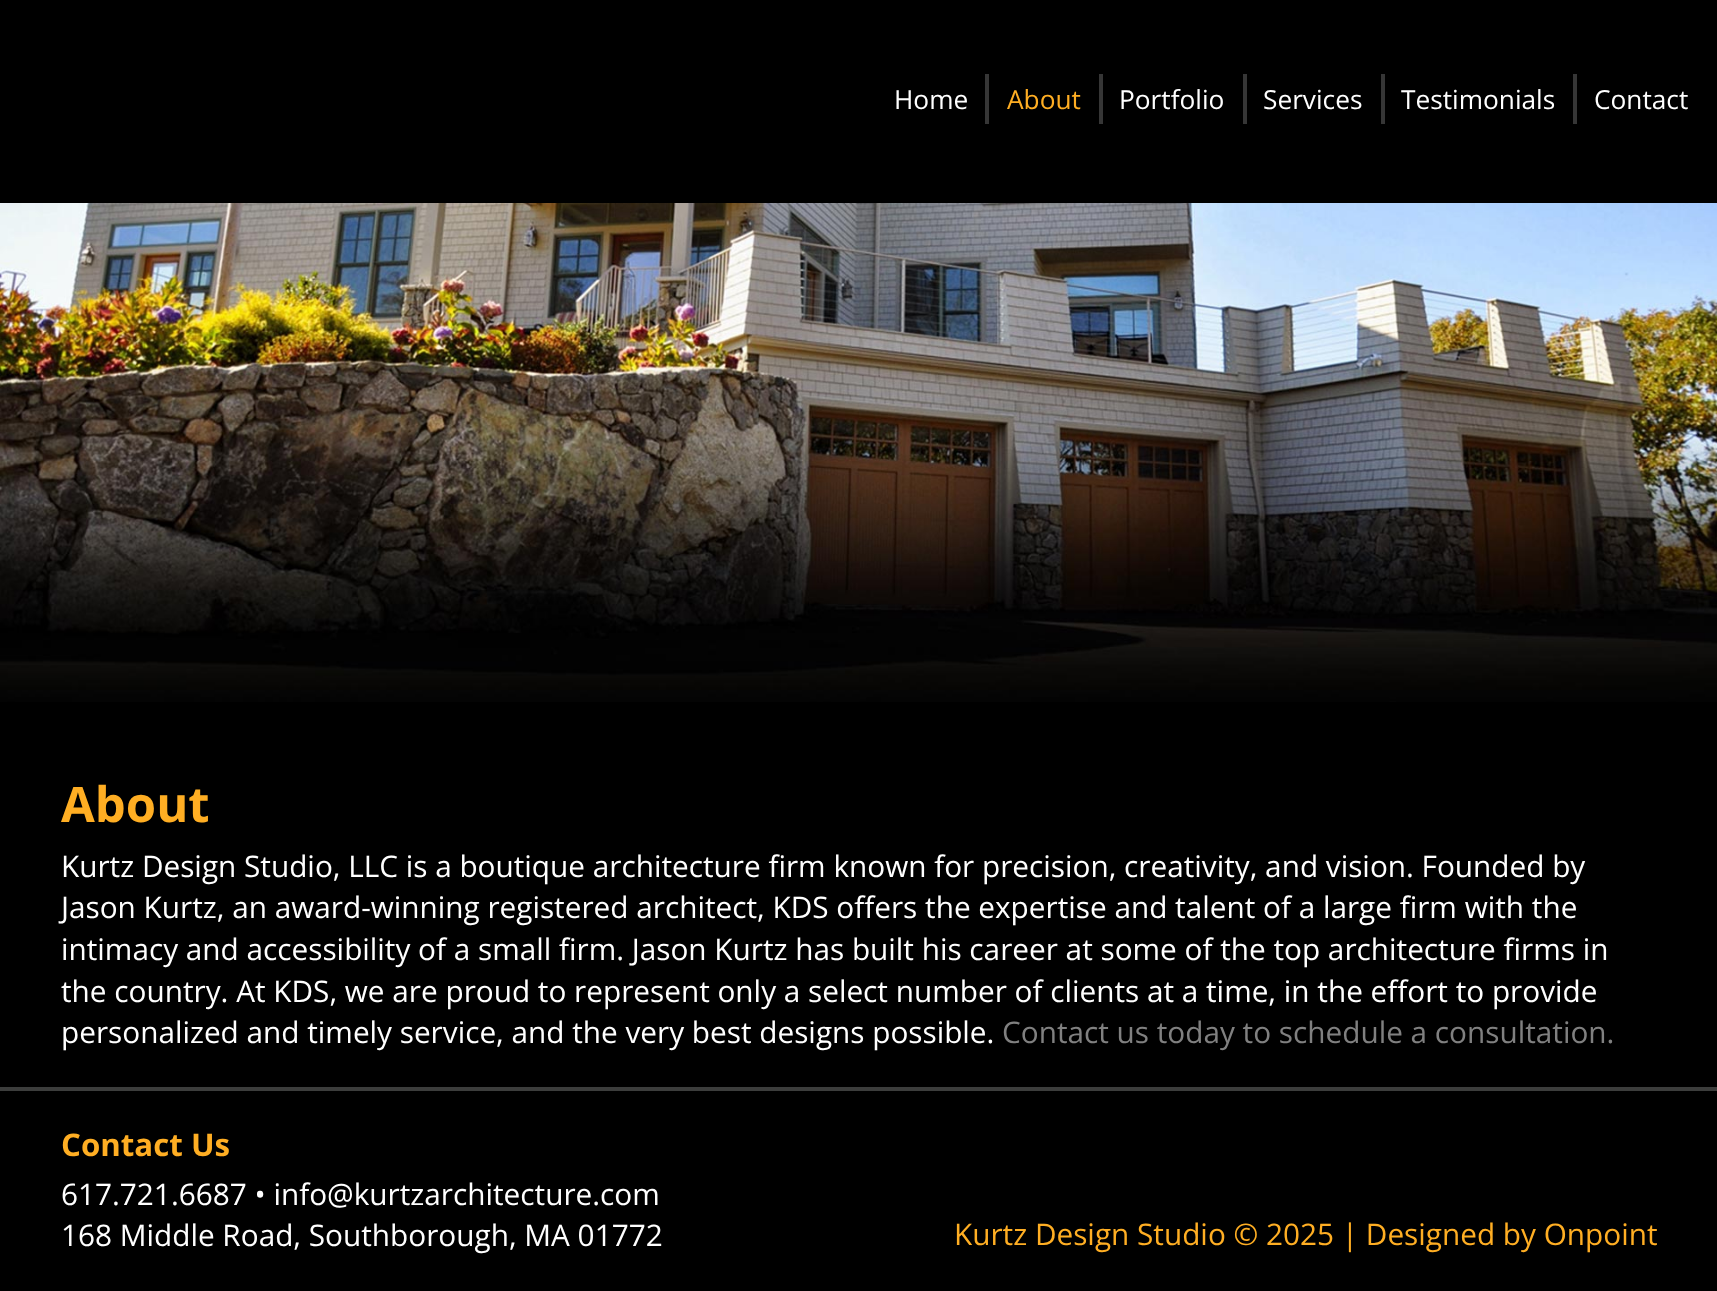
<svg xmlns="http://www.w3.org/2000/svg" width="1717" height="1291">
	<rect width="100%" height="100%" fill="#000000" />
	<rect x="985" y="74" width="4" height="50" fill="#363636" />
	<text x="894" y="109" font-family="Open Sans" font-size="26.25" fill="#FFFFFF">Home</text>
	<rect x="1099" y="74" width="4" height="50" fill="#363636" />
	<text x="1007" y="109" font-family="Open Sans" font-size="26.25" fill="#FFAE23">About</text>
	<rect x="1243" y="74" width="4" height="50" fill="#363636" />
	<text x="1119" y="109" font-family="Open Sans" font-size="26.25" fill="#FFFFFF">Portfolio</text>
	<rect x="1381" y="74" width="4" height="50" fill="#363636" />
	<text x="1263" y="109" font-family="Open Sans" font-size="26.25" fill="#FFFFFF">Services</text>
	<rect x="1573" y="74" width="4" height="50" fill="#363636" />
	<g font-family="Open Sans" font-size="26.25" fill="#FFFFFF">
		<text x="1401" y="109">Testimonials</text>
		<text x="1594" y="109">Contact</text>
	</g>
	<image x="0" y="203" width="1717" height="499" href="assets/img1.png" />
	<text x="61" y="822" font-family="Open Sans" font-size="49" font-weight="700" fill="#FFAE23">About</text>
	<g font-family="Open Sans" font-size="29.75" fill="#FFFFFF">
		<text x="61" y="877">Kurtz Design Studio, LLC is a boutique architecture firm known for precision, creativity, and vision. Founded by</text>
		<text x="61" y="918">Jason Kurtz, an award-winning registered architect, KDS offers the expertise and talent of a large firm with the</text>
		<text x="61" y="960">intimacy and accessibility of a small firm. Jason Kurtz has built his career at some of the top architecture firms in</text>
		<text x="61" y="1002">the country. At KDS, we are proud to represent only a select number of clients at a time, in the effort to provide</text>
		<text x="61" y="1043">personalized and timely service, and the very best designs possible.</text>
	</g>
	<text x="1002" y="1043" font-family="Open Sans" font-size="29.75" fill="#808080">Contact us today to schedule a consultation.</text>
	<rect x="0" y="1087" width="1717" height="4" fill="#3C3D3C" />
	<text x="61" y="1156" font-family="Open Sans" font-size="31.25" font-weight="700" fill="#FFAE23">Contact Us</text>
	<g font-family="Open Sans" font-size="29.75" fill="#FFFFFF">
		<text x="61" y="1205">617.721.6687 • info@kurtzarchitecture.com</text>
		<text x="61" y="1246">168 Middle Road, Southborough, MA 01772</text>
	</g>
	<text x="954" y="1245" font-family="Open Sans" font-size="29.75" fill="#FFAE23">Kurtz Design Studio © 2025 | Designed by Onpoint</text>
</svg>
